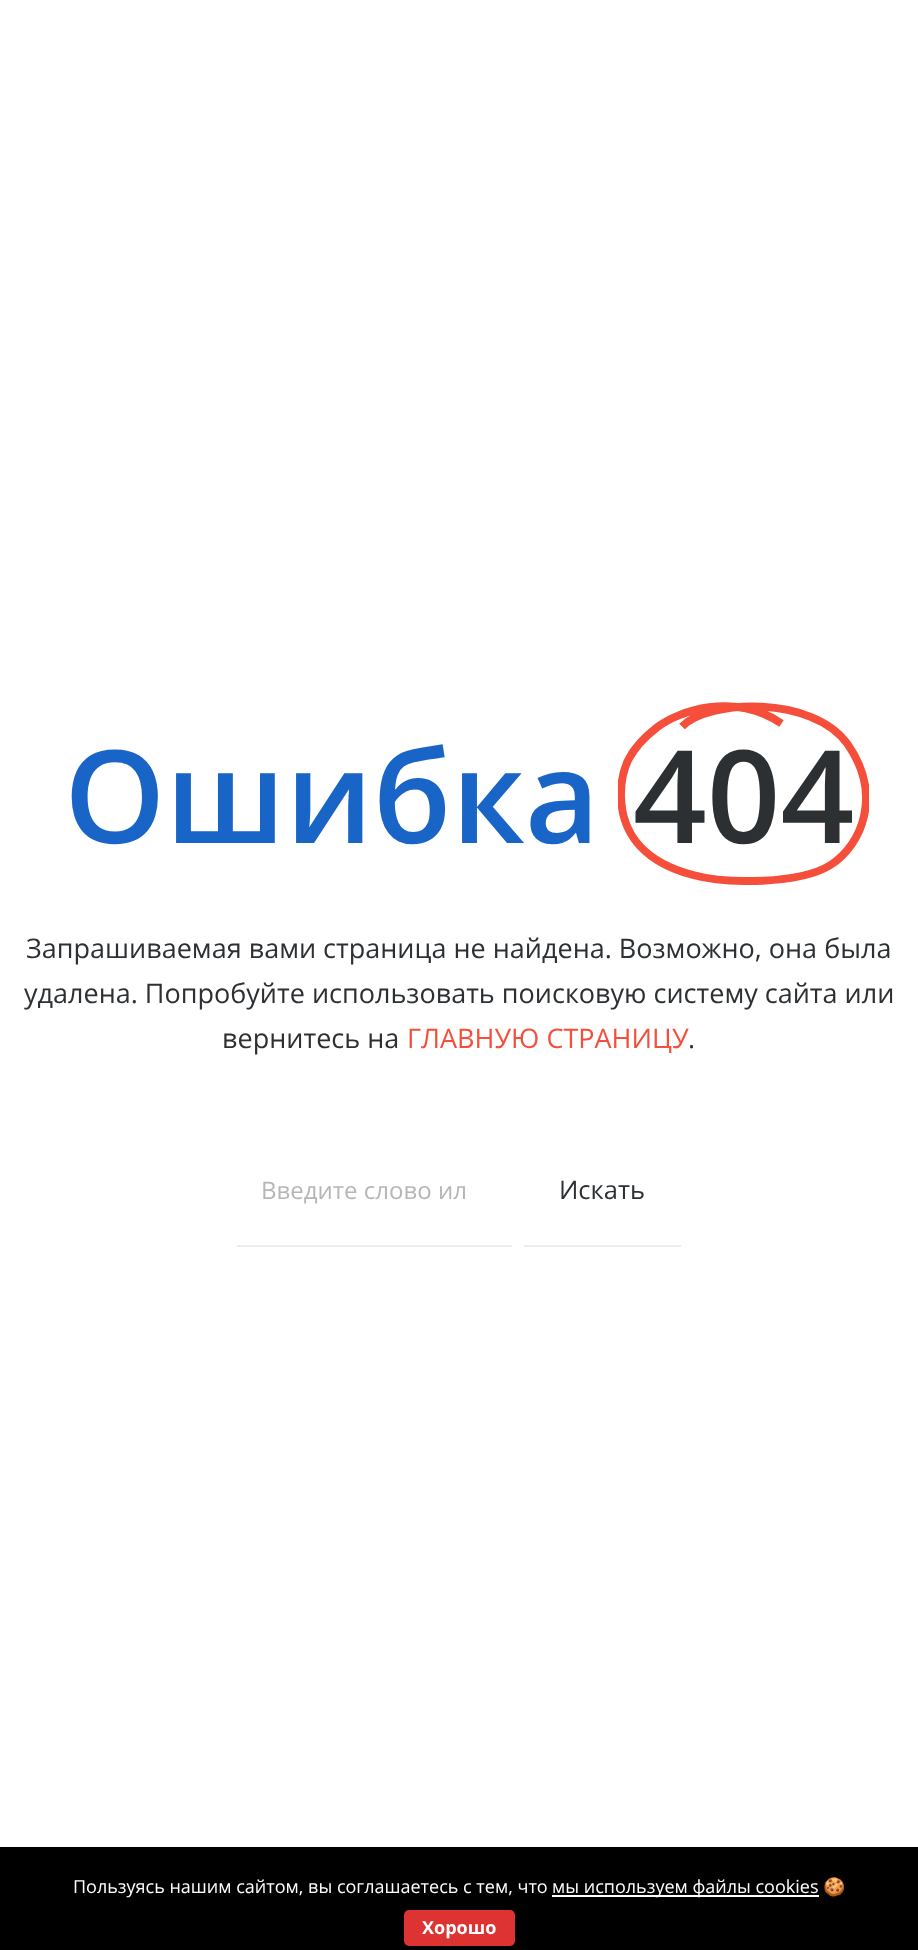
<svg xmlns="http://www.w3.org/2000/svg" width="918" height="1950">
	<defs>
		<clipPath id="clip1"><rect x="618" y="701" width="251" height="184" /></clipPath>
	</defs>
	<rect width="100%" height="100%" fill="#FFFFFF" />
	<text x="64" y="843" font-family="Open Sans" font-size="129" font-weight="600" fill="#1865C7">Ошибка</text>
	<g clip-path="url(#clip1)">
		<path d="M781.5 723.5C733.5 691 678 711.5 657.5 727C629.5 748.5 620.5 768.5 621 796.5C622 836.5 647.5 863 693 875C726 884 799.5 884.5 830.5 865C862.5 844.5 882.5 794 847.5 744C812.5 695 708.5 699.5 682 726.5" fill="none" stroke="#F54E3B" stroke-width="7.9" />
	</g>
	<text x="633" y="843" font-family="Open Sans" font-size="129" font-weight="600" fill="#2D3033">404</text>
	<g font-family="Open Sans" font-size="27" fill="#2D3033">
		<text x="26" y="958">Запрашиваемая вами страница не найдена. Возможно, она была</text>
		<text x="24" y="1003">удалена. Попробуйте использовать поисковую систему сайта или</text>
		<text x="222" y="1048">вернитесь на</text>
	</g>
	<text x="407" y="1048" font-family="Open Sans" font-size="27" fill="#F54E3B">ГЛАВНУЮ СТРАНИЦУ</text>
	<text x="688" y="1048" font-family="Open Sans" font-size="27" fill="#2D3033">.</text>
	<rect x="237" y="1245" width="275" height="2" fill="#E8EDF1" />
	<text x="261" y="1199" font-family="Open Sans" font-size="24" fill="#B6B6B6">Введите слово ил</text>
	<rect x="524" y="1245" width="157" height="2" fill="#E8EDF1" />
	<text x="559" y="1199" font-family="Open Sans" font-size="25.5" fill="#2D3033">Искать</text>
	<rect x="0" y="1847" width="918" height="103" fill="#000000" />
	<text x="73" y="1893" font-family="Open Sans" font-size="18" fill="#FFFFFF">Пользуясь нашим сайтом, вы соглашаетесь с тем, что</text>
	<rect x="552" y="1895" width="267" height="2" fill="#FFFFFF" />
	<text x="552" y="1893" font-family="Open Sans" font-size="18" fill="#FFFFFF">мы используем файлы cookies</text>
	<text x="823" y="1893" font-family="Noto Color Emoji" font-size="18" fill="#FFFFFF">🍪</text>
	<rect x="404" y="1910" width="111" height="36" rx="5" fill="#DD3333" />
	<text x="422" y="1934" font-family="Open Sans" font-size="18" font-weight="700" fill="#FFFFFF">Хорошо</text>
</svg>
